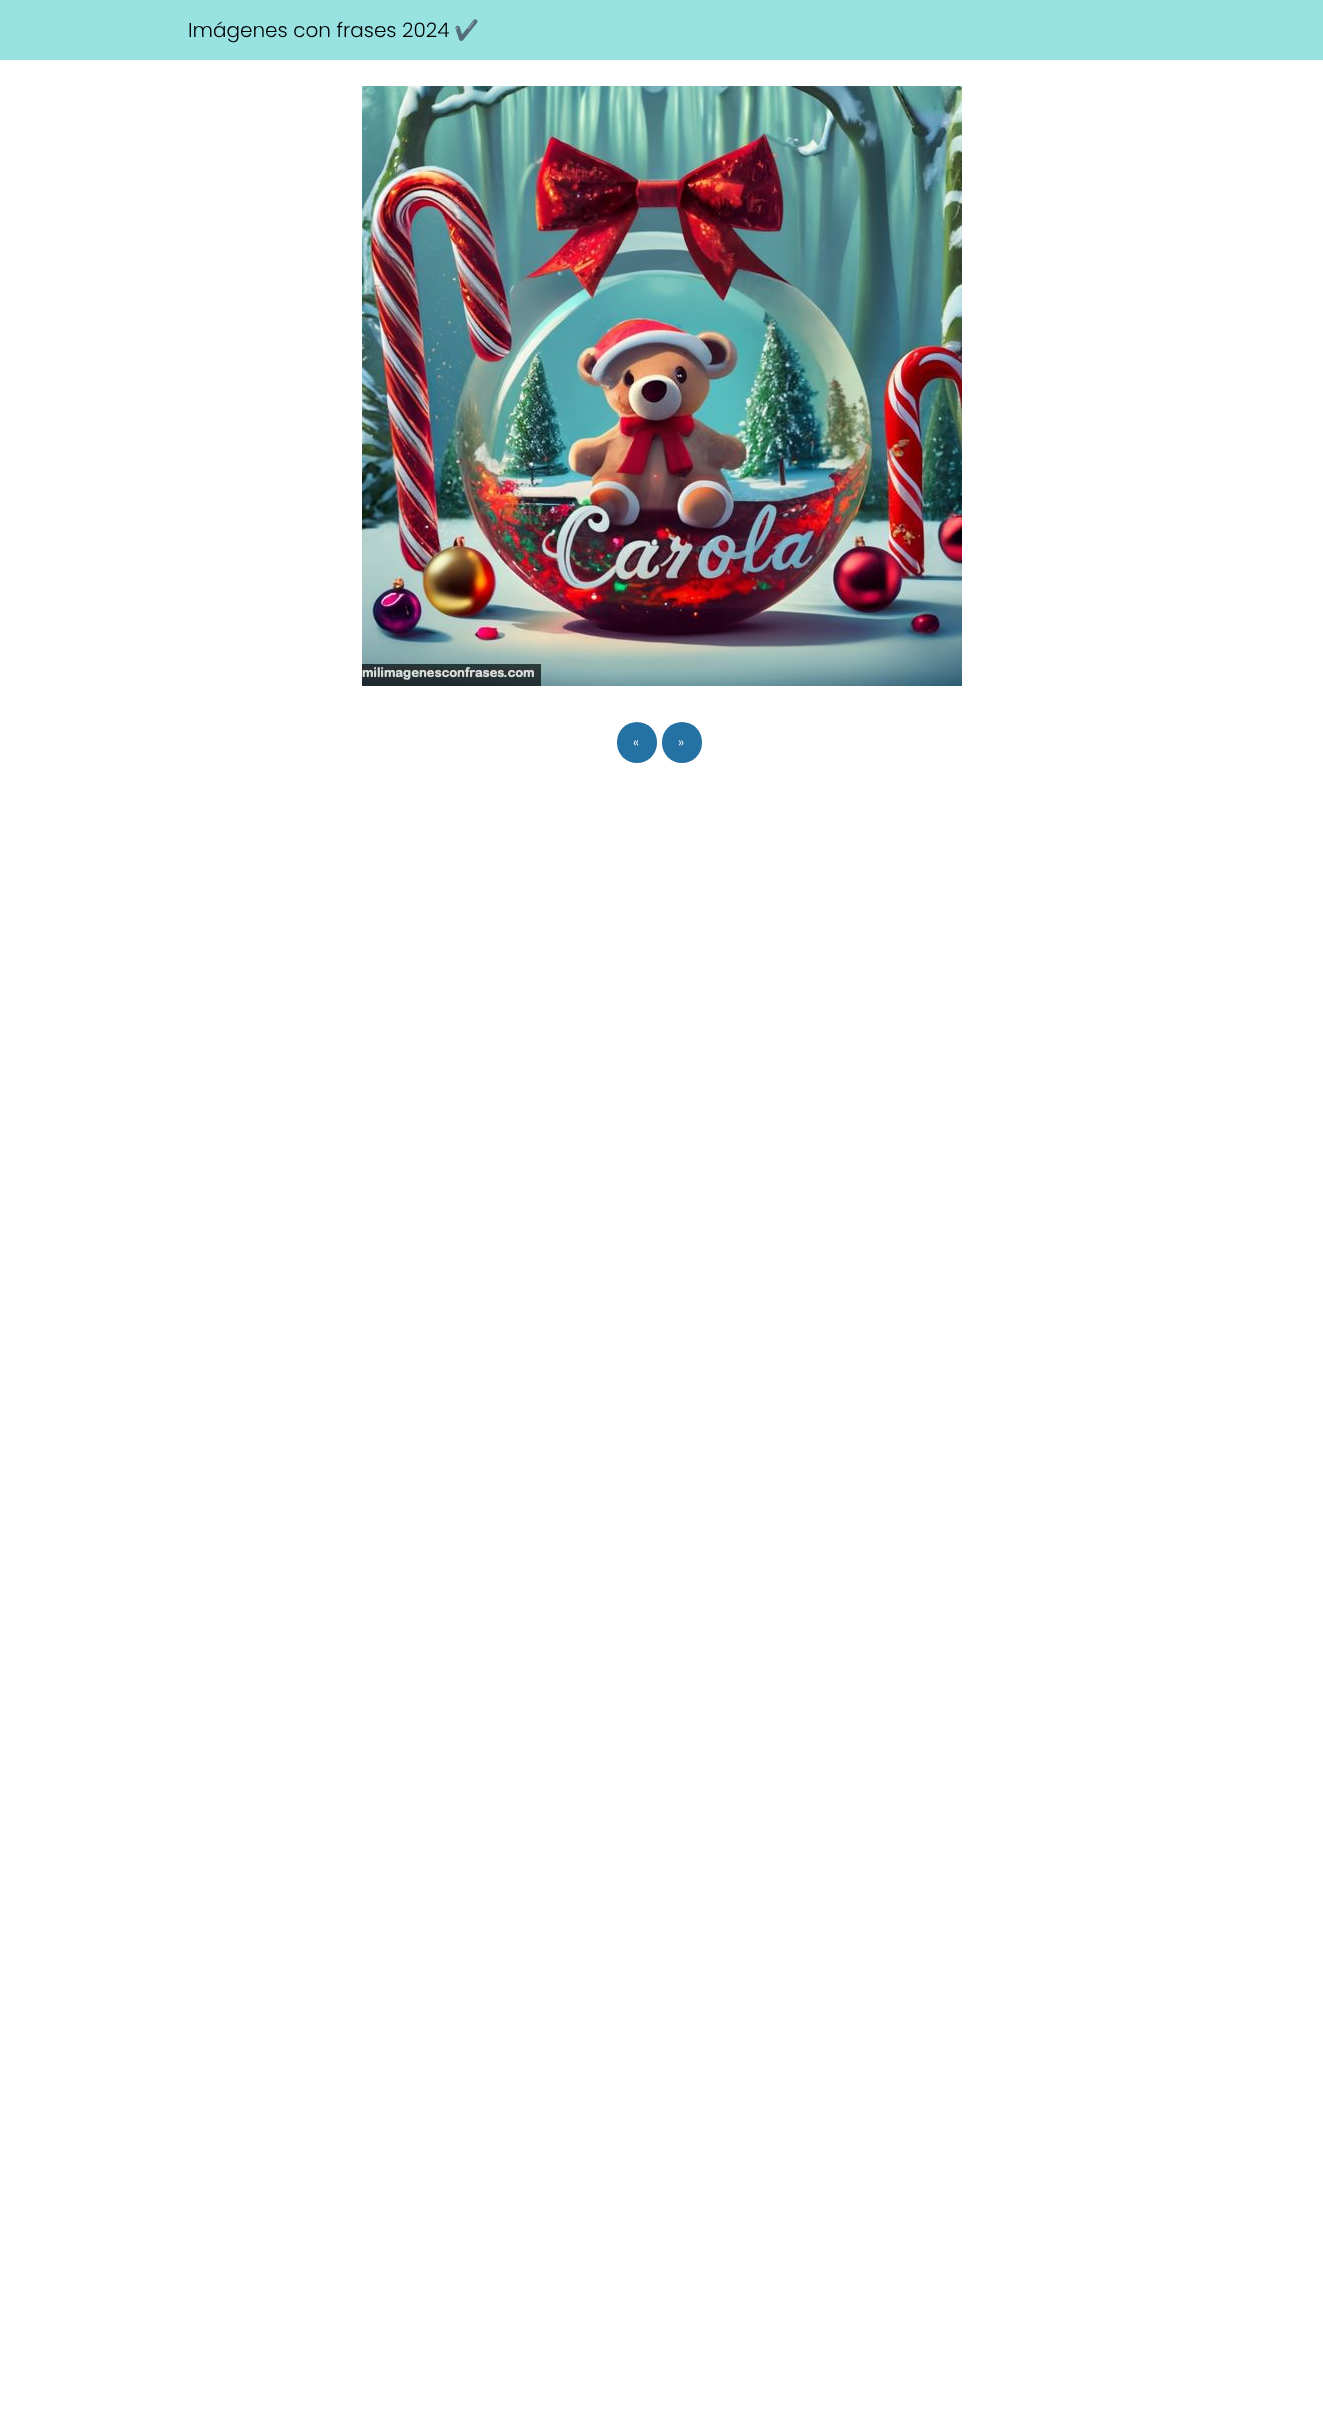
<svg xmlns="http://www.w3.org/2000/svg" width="1323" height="2424">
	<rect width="100%" height="100%" fill="#FFFFFF" />
	<rect x="0" y="0" width="1323" height="60" fill="#98E2E2" />
	<text x="188" y="37" font-family="Poppins" font-size="20" font-weight="300" fill="#000000">Imágenes con frases 2024</text>
	<text x="454" y="37" font-family="Noto Color Emoji" font-size="20" fill="#000000">✔️</text>
	<image x="362" y="86" width="600" height="600" href="assets/img1.png" />
	<rect x="617" y="722" width="40" height="41" rx="20" fill="#2471A3" />
	<text x="633" y="747" font-family="Poppins" font-size="14" font-weight="300" fill="#FFFFFF">«</text>
	<rect x="662" y="722" width="40" height="41" rx="20" fill="#2471A3" />
	<text x="678" y="747" font-family="Poppins" font-size="14" font-weight="300" fill="#FFFFFF">»</text>
</svg>
